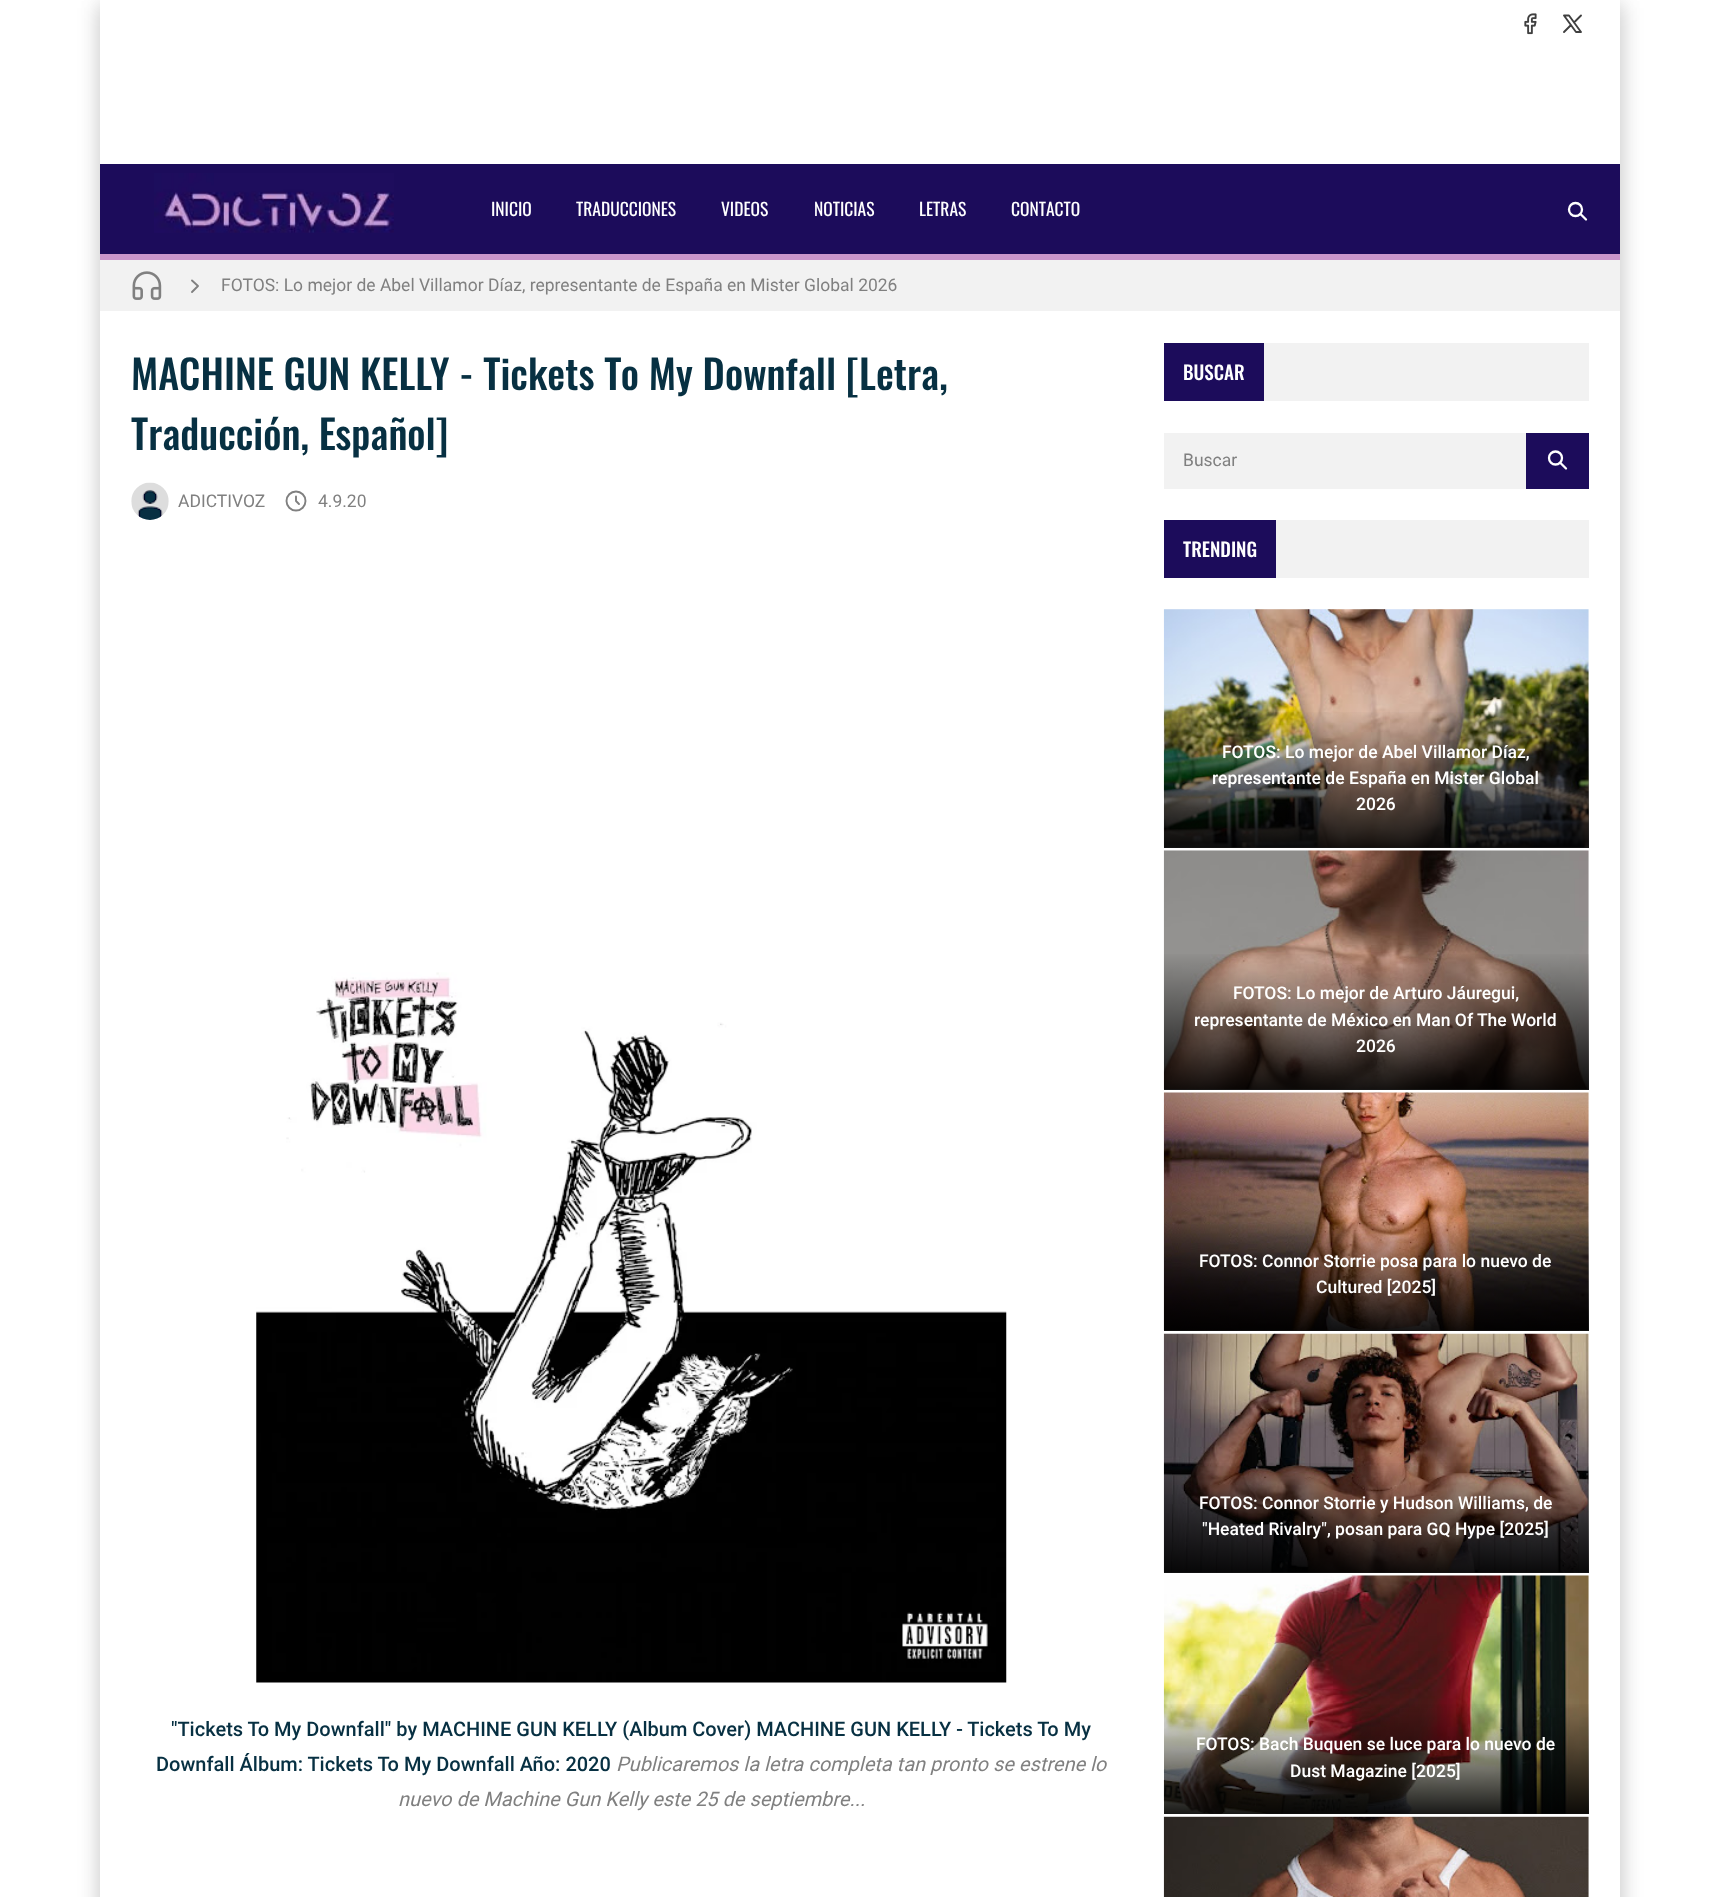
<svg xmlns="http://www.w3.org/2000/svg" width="1718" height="1897">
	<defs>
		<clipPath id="clip1"><path d="M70 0H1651V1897H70ZM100 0H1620V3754H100Z" clip-rule="evenodd" /></clipPath>
		<clipPath id="clip2"><path d="M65 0H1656V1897H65ZM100 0H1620V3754H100Z" clip-rule="evenodd" /></clipPath>
		<linearGradient id="g1" gradientUnits="userSpaceOnUse" x1="1376" y1="709" x2="1376" y2="848"><stop offset="0" stop-color="#000000" stop-opacity="0" /><stop offset="1" stop-color="#000000" stop-opacity="0.9" /></linearGradient>
		<linearGradient id="g2" gradientUnits="userSpaceOnUse" x1="1376" y1="951" x2="1376" y2="1090"><stop offset="0" stop-color="#000000" stop-opacity="0" /><stop offset="1" stop-color="#000000" stop-opacity="0.9" /></linearGradient>
		<linearGradient id="g3" gradientUnits="userSpaceOnUse" x1="1376" y1="1219" x2="1376" y2="1331"><stop offset="0" stop-color="#000000" stop-opacity="0" /><stop offset="1" stop-color="#000000" stop-opacity="0.9" /></linearGradient>
		<linearGradient id="g4" gradientUnits="userSpaceOnUse" x1="1376" y1="1460" x2="1376" y2="1573"><stop offset="0" stop-color="#000000" stop-opacity="0" /><stop offset="1" stop-color="#000000" stop-opacity="0.9" /></linearGradient>
		<linearGradient id="g5" gradientUnits="userSpaceOnUse" x1="1376" y1="1701" x2="1376" y2="1814"><stop offset="0" stop-color="#000000" stop-opacity="0" /><stop offset="1" stop-color="#000000" stop-opacity="0.9" /></linearGradient>
	</defs>
	<rect width="100%" height="100%" fill="#FFFFFF" />
	<g clip-path="url(#clip1)">
		<rect x="98" y="1" width="1525" height="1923" fill="#000000" fill-opacity="0.1" filter="blur(9px)" />
	</g>
	<g clip-path="url(#clip2)">
		<rect x="98" y="8" width="1525" height="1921" fill="#000000" fill-opacity="0.1" filter="blur(10.5px)" />
	</g>
	<image x="1524" y="13" width="13" height="22" href="assets/img1.png" />
	<path d="M1564 32L1571 25M1574 22.5L1581 15.5M1569 15.5H1564L1576 32H1581Z" fill="none" stroke="#404040" stroke-width="1.9" stroke-linecap="round" stroke-linejoin="round" />
	<rect x="100" y="164" width="1520" height="90" fill="#1C0C5B" />
	<image x="154" y="173" width="240" height="60" href="assets/img2.png" />
	<rect x="100" y="254" width="1520" height="6" fill="#C996CC" />
	<g font-family="Oswald" font-size="17.5" fill="#FFFFFF">
		<text x="491" y="216">INICIO</text>
		<text x="576" y="216">TRADUCCIONES</text>
		<text x="721" y="216">VIDEOS</text>
		<text x="814" y="216">NOTICIAS</text>
		<text x="919" y="216">LETRAS</text>
		<text x="1011" y="216">CONTACTO</text>
	</g>
	<circle cx="1575.5" cy="209.5" r="6.5" fill="none" stroke="#FFFFFF" stroke-width="2.3" />
	<path d="M1580.5 214L1586 219.5" fill="none" stroke="#FFFFFF" stroke-width="2.3" stroke-linecap="round" stroke-linejoin="round" />
	<rect x="100" y="260" width="1520" height="51" fill="#F2F2F2" />
	<image x="132" y="271" width="30" height="29" href="assets/img3.png" />
	<path d="M192 292L198 286L192 280.5" fill="none" stroke="#808080" stroke-width="1.9" stroke-linecap="round" stroke-linejoin="round" />
	<text x="221" y="291" font-family="Roboto" font-size="17.5" fill="#808080">FOTOS: Lo mejor de Abel Villamor Díaz, representante de España en Mister Global 2026</text>
	<g font-family="Oswald" font-size="40" font-weight="500" fill="#073042">
		<text x="131" y="390">MACHINE GUN KELLY - Tickets To My Downfall [Letra,</text>
		<text x="131" y="450">Traducción, Español]</text>
	</g>
	<image x="131" y="482" width="38" height="38" href="assets/img4.png" />
	<text x="178" y="507" font-family="Roboto" font-size="17.5" fill="#808080">ADICTIVOZ</text>
	<circle cx="296" cy="501" r="9.5" fill="none" stroke="#808080" stroke-width="1.9" />
	<path d="M296 496.5V501L299 504" fill="none" stroke="#808080" stroke-width="1.9" stroke-linecap="round" stroke-linejoin="round" />
	<text x="318" y="507" font-family="Roboto" font-size="17.5" fill="#808080">4.9.20</text>
	<image x="256" y="972" width="751" height="711" href="assets/img5.png" />
	<g font-family="Roboto" font-size="20" font-weight="500" fill="#073042">
		<text x="171" y="1736">"Tickets To My Downfall" by MACHINE GUN KELLY (Album Cover) MACHINE GUN KELLY - Tickets To My</text>
		<text x="156" y="1771">Downfall Álbum: Tickets To My Downfall Año: 2020</text>
	</g>
	<g font-family="Roboto" font-size="20" font-style="italic" fill="#808080">
		<text x="616" y="1771">Publicaremos la letra completa tan pronto se estrene lo</text>
		<text x="398" y="1806">nuevo de Machine Gun Kelly este 25 de septiembre...</text>
	</g>
	<rect x="1264" y="343" width="325" height="58" fill="#F2F2F2" />
	<rect x="1164" y="343" width="100" height="58" fill="#1C0C5B" />
	<text x="1183" y="380" font-family="Oswald" font-size="19" font-weight="500" fill="#FFFFFF">BUSCAR</text>
	<rect x="1164" y="433" width="362" height="56" fill="#F2F2F2" />
	<text x="1183" y="466" font-family="Roboto" font-size="17.5" fill="#808080">Buscar</text>
	<rect x="1526" y="433" width="63" height="56" fill="#1C0C5B" />
	<circle cx="1555.5" cy="458" r="6.5" fill="none" stroke="#FFFFFF" stroke-width="2.3" />
	<path d="M1560.5 463L1566 468.5" fill="none" stroke="#FFFFFF" stroke-width="2.3" stroke-linecap="round" stroke-linejoin="round" />
	<rect x="1276" y="520" width="313" height="58" fill="#F2F2F2" />
	<rect x="1164" y="520" width="112" height="58" fill="#1C0C5B" />
	<text x="1183" y="557" font-family="Oswald" font-size="19" font-weight="500" fill="#FFFFFF">TRENDING</text>
	<image x="1163" y="609" width="426" height="239" href="assets/img6.png" />
	<rect x="1164" y="712" width="425" height="136" fill="url(#g1)" />
	<g font-family="Roboto" font-size="17.5" font-weight="500" fill="#FFFFFF">
		<text x="1222" y="758">FOTOS: Lo mejor de Abel Villamor Díaz,</text>
		<text x="1212" y="784">representante de España en Mister Global</text>
		<text x="1356" y="810">2026</text>
	</g>
	<image x="1163" y="850" width="426" height="240" href="assets/img7.png" />
	<rect x="1164" y="954" width="425" height="136" fill="url(#g2)" />
	<g font-family="Roboto" font-size="17.5" font-weight="500" fill="#FFFFFF">
		<text x="1233" y="999">FOTOS: Lo mejor de Arturo Jáuregui,</text>
		<text x="1194" y="1026">representante de México en Man Of The World</text>
		<text x="1356" y="1052">2026</text>
	</g>
	<image x="1163" y="1092" width="426" height="239" href="assets/img8.png" />
	<rect x="1164" y="1222" width="425" height="109" fill="url(#g3)" />
	<g font-family="Roboto" font-size="17.5" font-weight="500" fill="#FFFFFF">
		<text x="1199" y="1267">FOTOS: Connor Storrie posa para lo nuevo de</text>
		<text x="1316" y="1293">Cultured [2025]</text>
	</g>
	<image x="1163" y="1333" width="426" height="240" href="assets/img9.png" />
	<rect x="1164" y="1463" width="425" height="110" fill="url(#g4)" />
	<g font-family="Roboto" font-size="17.5" font-weight="500" fill="#FFFFFF">
		<text x="1199" y="1509">FOTOS: Connor Storrie y Hudson Williams, de</text>
		<text x="1202" y="1535">"Heated Rivalry", posan para GQ Hype [2025]</text>
	</g>
	<image x="1163" y="1575" width="426" height="239" href="assets/img10.png" />
	<rect x="1164" y="1704" width="425" height="110" fill="url(#g5)" />
	<g font-family="Roboto" font-size="17.5" font-weight="500" fill="#FFFFFF">
		<text x="1196" y="1750">FOTOS: Bach Buquen se luce para lo nuevo de</text>
		<text x="1290" y="1777">Dust Magazine [2025]</text>
	</g>
	<image x="1163" y="1816" width="426" height="81" href="assets/img11.png" />
</svg>
